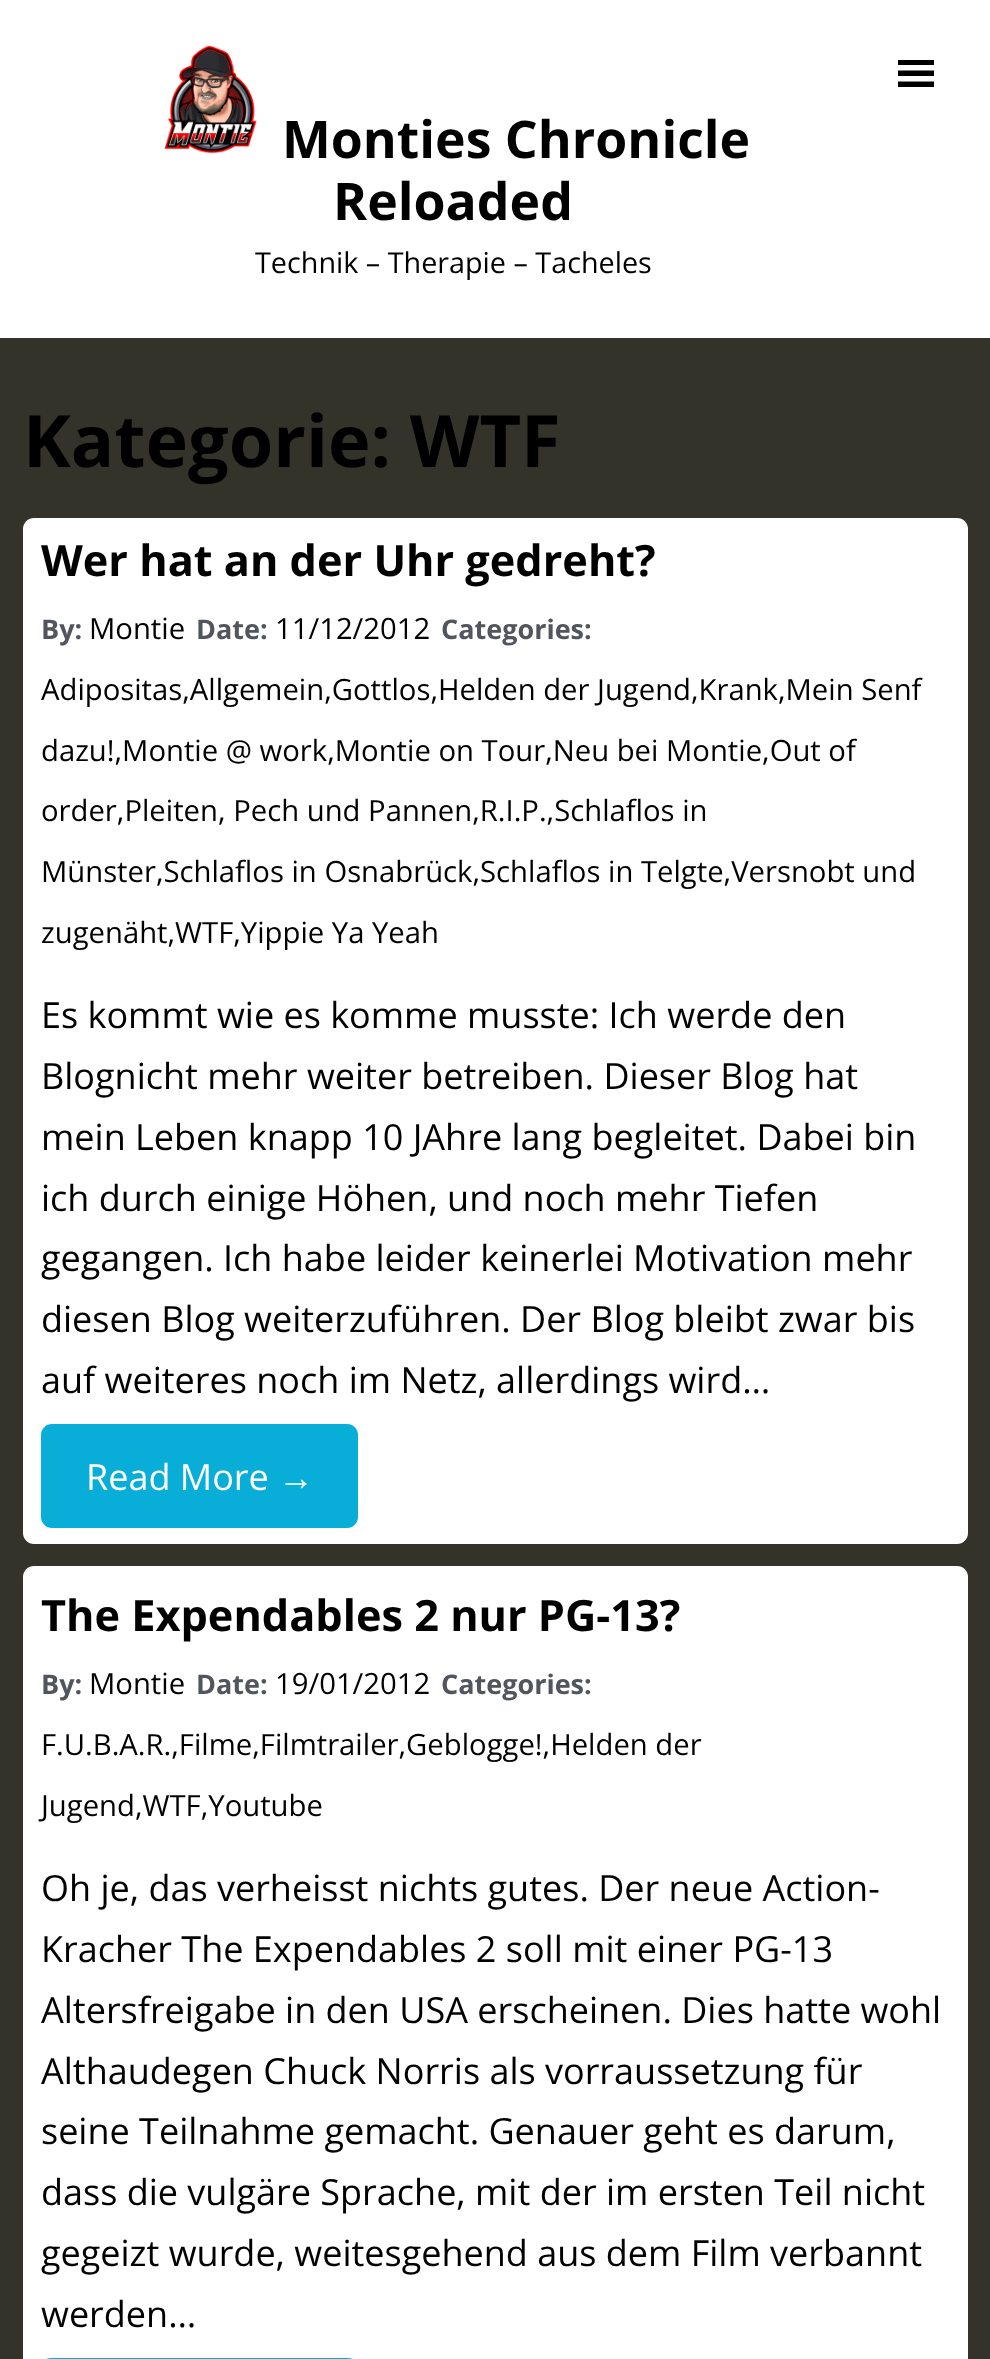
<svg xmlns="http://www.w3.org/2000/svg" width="990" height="2359">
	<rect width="100%" height="100%" fill="#333329" />
	<rect x="0" y="0" width="990" height="338" fill="#FFFFFF" />
	<path d="M934 65V60H898V65ZM934 76V70.5H898V76ZM934 87V81.5H898V87Z" fill="#000000" />
	<image x="164" y="45" width="93" height="109" href="assets/img1.png" />
	<g font-family="Open Sans" font-size="51.75" font-weight="700" fill="#000000">
		<text x="282" y="158">Monties Chronicle</text>
		<text x="333" y="220">Reloaded</text>
	</g>
	<text x="255" y="273" font-family="Open Sans" font-size="28.75" fill="#000000">Technik – Therapie – Tacheles</text>
	<text x="23" y="467" font-family="Open Sans" font-size="72" font-weight="700" fill="#000000">Kategorie: WTF</text>
	<rect x="23" y="518" width="945" height="1026" rx="11" fill="#FFFFFF" />
	<text x="41" y="576" font-family="Open Sans" font-size="43.25" font-weight="700" fill="#000000">Wer hat an der Uhr gedreht?</text>
	<text x="41" y="639" font-family="Open Sans" font-size="27" font-weight="700" fill="#51565E">By:</text>
	<text x="89" y="639" font-family="Open Sans" font-size="29.25" fill="#000000">Montie</text>
	<text x="196" y="639" font-family="Open Sans" font-size="27" font-weight="700" fill="#51565E">Date:</text>
	<text x="275" y="639" font-family="Open Sans" font-size="29.25" fill="#000000">11/12/2012</text>
	<text x="441" y="639" font-family="Open Sans" font-size="27" font-weight="700" fill="#51565E">Categories:</text>
	<g font-family="Open Sans" font-size="29.25" fill="#000000">
		<text x="41" y="700">Adipositas,Allgemein,Gottlos,Helden der Jugend,Krank,Mein Senf</text>
		<text x="41" y="761">dazu!,Montie @ work,Montie on Tour,Neu bei Montie,Out of</text>
		<text x="41" y="821">order,Pleiten, Pech und Pannen,R.I.P.,Schlaflos in</text>
		<text x="41" y="882">Münster,Schlaflos in Osnabrück,Schlaflos in Telgte,Versnobt und</text>
		<text x="41" y="943">zugenäht,WTF,Yippie Ya Yeah</text>
	</g>
	<g font-family="Open Sans" font-size="36" fill="#000000">
		<text x="41" y="1028">Es kommt wie es komme musste: Ich werde den</text>
		<text x="41" y="1089">Blognicht mehr weiter betreiben. Dieser Blog hat</text>
		<text x="41" y="1150">mein Leben knapp 10 JAhre lang begleitet. Dabei bin</text>
		<text x="41" y="1211">ich durch einige Höhen, und noch mehr Tiefen</text>
		<text x="41" y="1271">gegangen. Ich habe leider keinerlei Motivation mehr</text>
		<text x="41" y="1332">diesen Blog weiterzuführen. Der Blog bleibt zwar bis</text>
		<text x="41" y="1393">auf weiteres noch im Netz, allerdings wird…</text>
	</g>
	<rect x="41" y="1424" width="317" height="104" rx="11" fill="#08AED8" />
	<text x="86" y="1490" font-family="Open Sans" font-size="36" fill="#FFFFFF">Read More</text>
	<text x="278" y="1490" font-family="Liberation Sans" font-size="36" fill="#FFFFFF">→</text>
	<rect x="23" y="1566" width="945" height="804" rx="11" fill="#FFFFFF" />
	<text x="41" y="1631" font-family="Open Sans" font-size="43.25" font-weight="700" fill="#000000">The Expendables 2 nur PG-13?</text>
	<text x="41" y="1694" font-family="Open Sans" font-size="27" font-weight="700" fill="#51565E">By:</text>
	<text x="89" y="1694" font-family="Open Sans" font-size="29.25" fill="#000000">Montie</text>
	<text x="196" y="1694" font-family="Open Sans" font-size="27" font-weight="700" fill="#51565E">Date:</text>
	<text x="275" y="1694" font-family="Open Sans" font-size="29.25" fill="#000000">19/01/2012</text>
	<text x="441" y="1694" font-family="Open Sans" font-size="27" font-weight="700" fill="#51565E">Categories:</text>
	<g font-family="Open Sans" font-size="29.25" fill="#000000">
		<text x="41" y="1755">F.U.B.A.R.,Filme,Filmtrailer,Geblogge!,Helden der</text>
		<text x="41" y="1816">Jugend,WTF,Youtube</text>
	</g>
	<g font-family="Open Sans" font-size="36" fill="#000000">
		<text x="41" y="1901">Oh je, das verheisst nichts gutes. Der neue Action-</text>
		<text x="41" y="1962">Kracher The Expendables 2 soll mit einer PG-13</text>
		<text x="41" y="2023">Altersfreigabe in den USA erscheinen. Dies hatte wohl</text>
		<text x="41" y="2084">Althaudegen Chuck Norris als vorraussetzung für</text>
		<text x="41" y="2144">seine Teilnahme gemacht. Genauer geht es darum,</text>
		<text x="41" y="2205">dass die vulgäre Sprache, mit der im ersten Teil nicht</text>
		<text x="41" y="2266">gegeizt wurde, weitesgehend aus dem Film verbannt</text>
		<text x="41" y="2327">werden…</text>
	</g>
	<rect x="41" y="2358" width="317" height="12" rx="11" fill="#08AED8" />
</svg>
